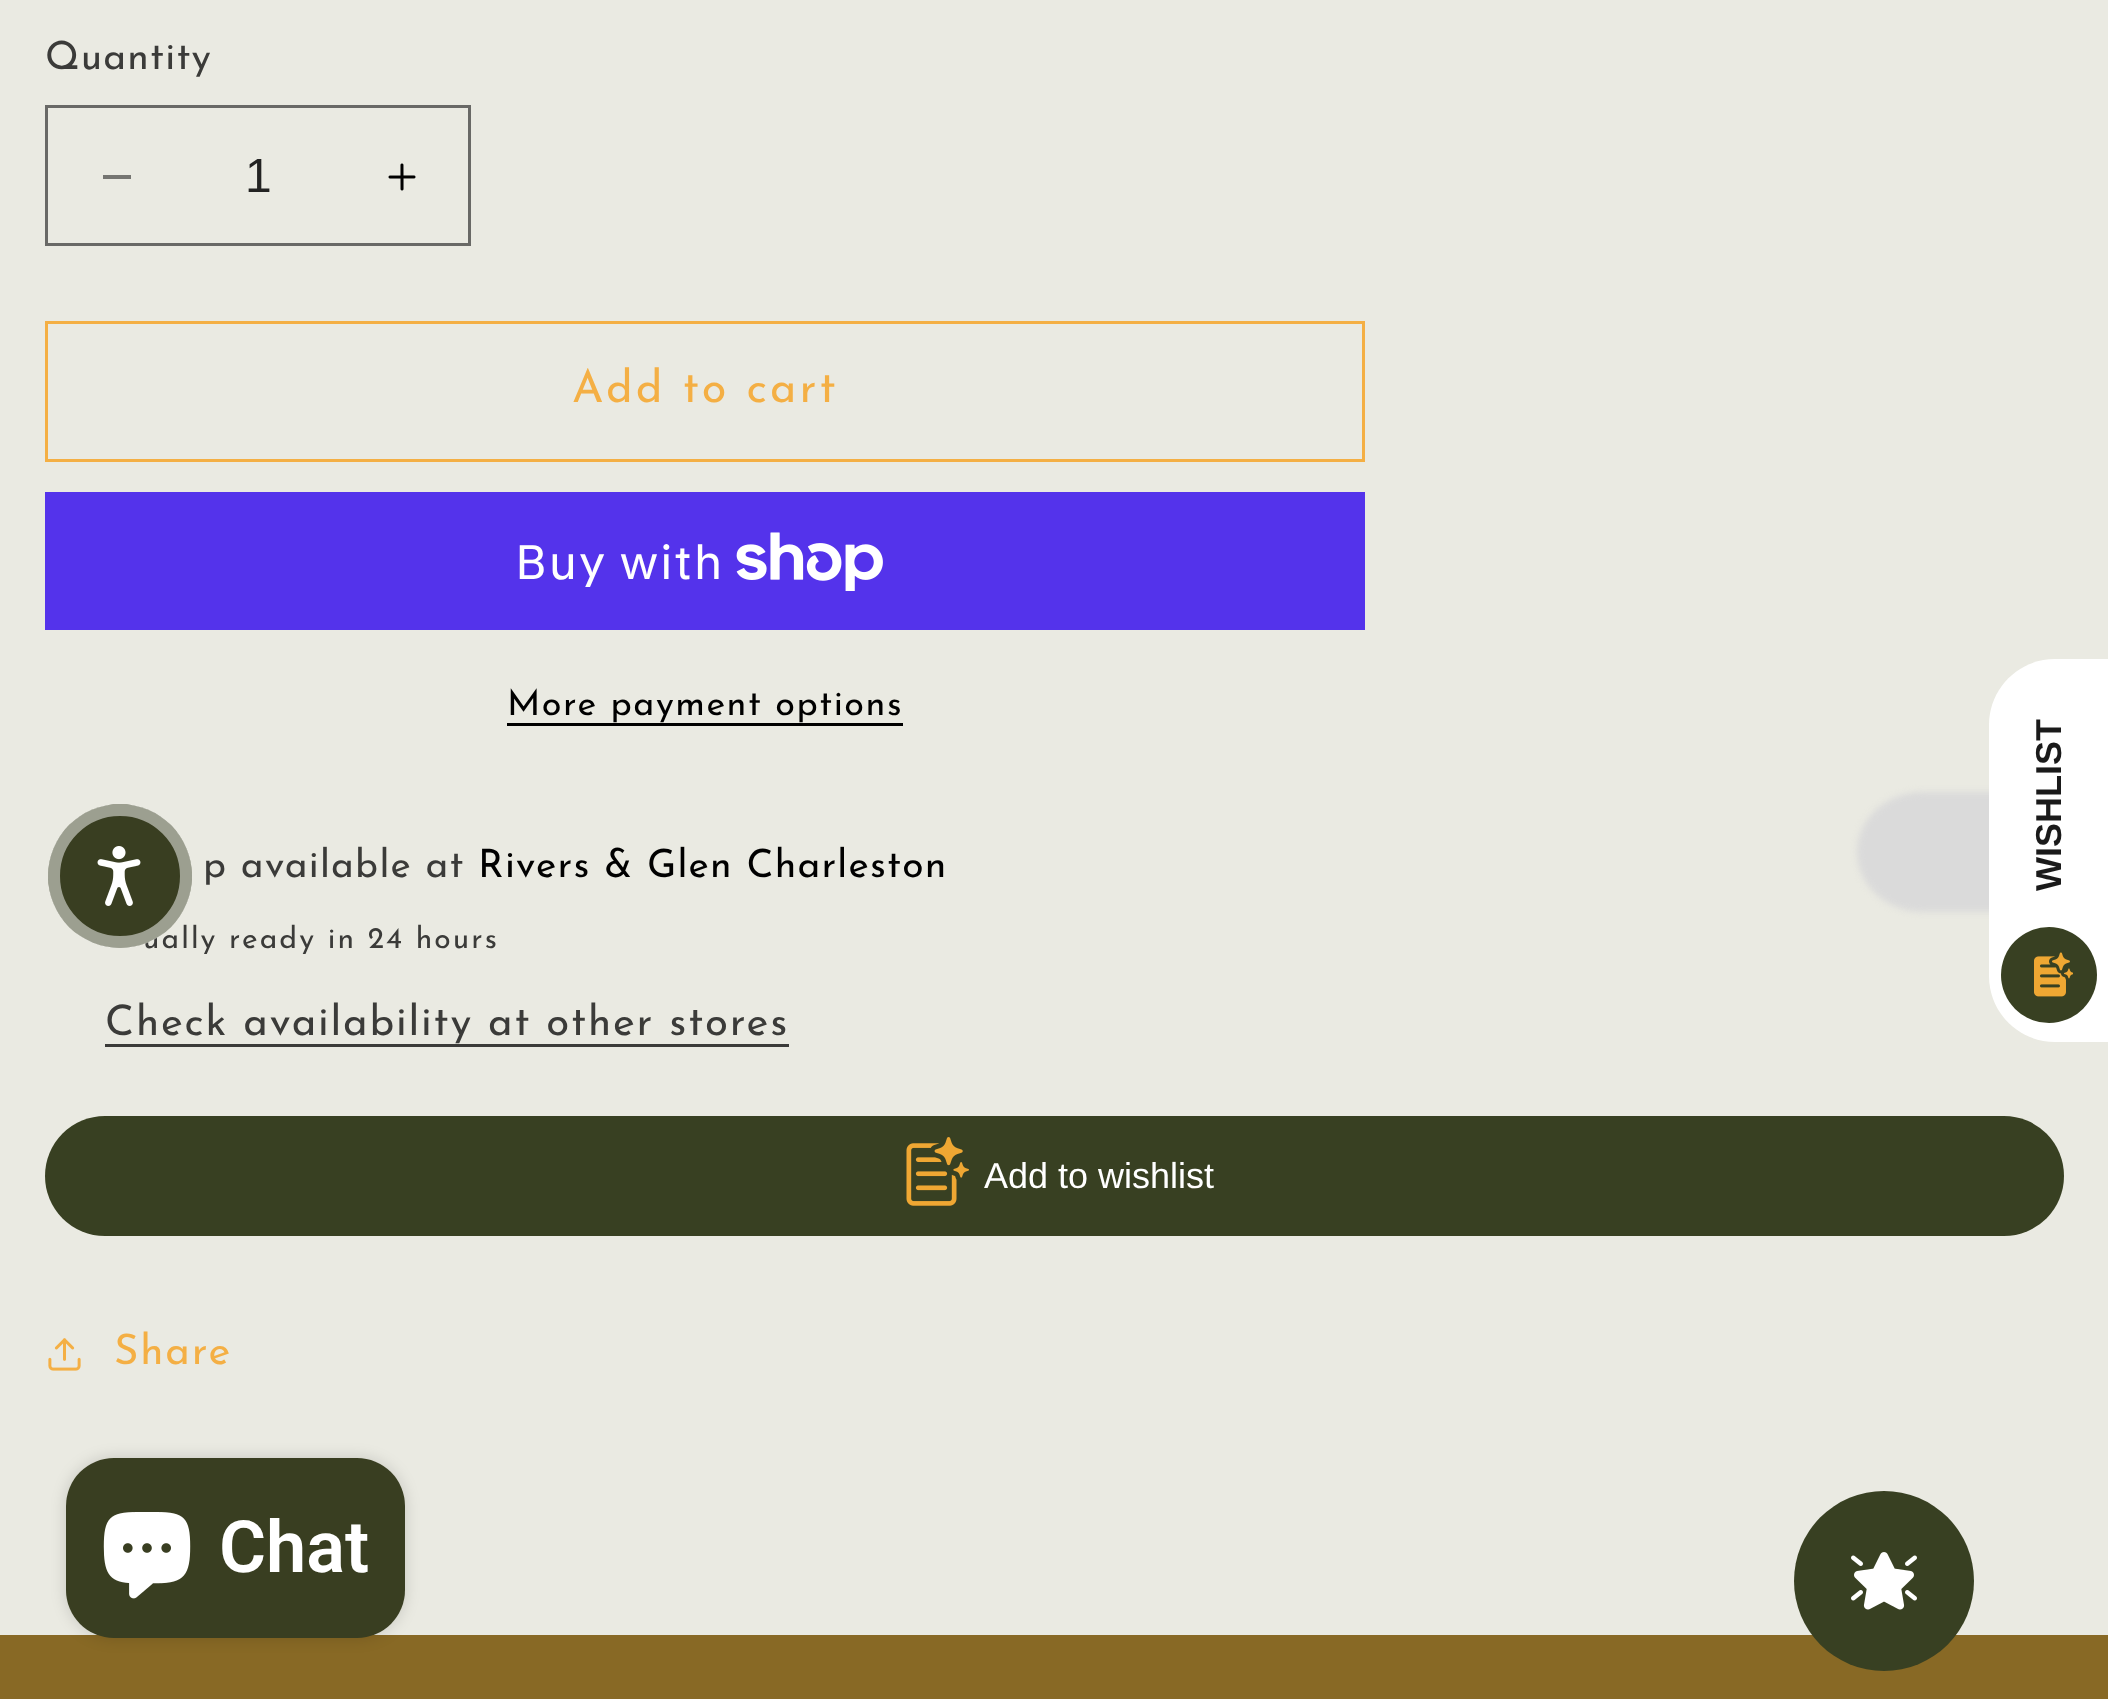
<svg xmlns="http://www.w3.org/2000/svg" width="2108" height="1699">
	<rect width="100%" height="100%" fill="#EAEAE2" />
	<text x="45" y="69" font-family="Josefin Sans" font-size="39" letter-spacing="1.2" fill="#3B3B39">Quantity</text>
	<rect x="103" y="175" width="28" height="4" fill="#757571" />
	<image x="388" y="163" width="28" height="28" href="assets/img1.png" />
	<rect x="46.5" y="106.5" width="423" height="138" fill="none" stroke="#696966" stroke-width="3" />
	<text x="245" y="192" font-family="Liberation Sans" font-size="48" fill="#232322">1</text>
	<rect x="46.5" y="322.5" width="1317" height="138" fill="none" stroke="#F4AF44" stroke-width="3" />
	<text x="572" y="402" font-family="Josefin Sans" font-size="45" letter-spacing="3" fill="#F4AF44">Add to cart</text>
	<rect x="45" y="492" width="1320" height="138" fill="#5433EB" />
	<text x="515" y="579" font-family="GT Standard" font-size="48" letter-spacing="1.8" fill="#FFFFFF">Buy with</text>
	<image x="736" y="532" width="147" height="59" href="assets/img2.png" />
	<text x="507" y="715" font-family="Josefin Sans" font-size="36" letter-spacing="1.5" fill="#000000">More payment options</text>
	<rect x="507" y="723" width="396" height="3" fill="#000000" />
	<text x="203" y="877" font-family="Josefin Sans" font-size="39" letter-spacing="1.2" fill="#3B3B39">p available at</text>
	<text x="478" y="877" font-family="Josefin Sans" font-size="39" letter-spacing="1.2" fill="#000000">Rivers &amp; Glen Charleston</text>
	<text x="143" y="948" font-family="Josefin Sans" font-size="30" letter-spacing="2.1" fill="#3B3B39">ually ready in 24 hours</text>
	<text x="105" y="1035" font-family="Josefin Sans" font-size="42" letter-spacing="1.8" fill="#3B3B39">Check availability at other stores</text>
	<rect x="105" y="1044" width="684" height="3" fill="#3B3B39" />
	<rect x="45" y="1116" width="2019" height="120" rx="60" fill="#384022" />
	<image x="906" y="1137" width="63" height="69" href="assets/img3.png" />
	<text x="984" y="1188" font-family="Liberation Sans" font-size="36" fill="#FFFFFF">Add to wishlist</text>
	<image x="48" y="1338" width="33" height="33" href="assets/img4.png" />
	<text x="114" y="1364" font-family="Josefin Sans" font-size="42" letter-spacing="1.8" fill="#F4AF44">Share</text>
	<rect x="1857" y="792" width="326" height="120" rx="66" fill="#DADADA" filter="blur(3px)" />
	<path d="M1989 976V725C1989 688 2019 659 2055 659H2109V1042H2055C2019 1042 1989 1013 1989 976Z" fill="#FFFFFF" />
	<text x="2061" y="891" transform="rotate(-90 2061 891)" font-family="Liberation Sans" font-size="36" font-weight="700" fill="#1A1A1A">WISHLIST</text>
	<circle cx="2049" cy="975" r="48" fill="#384022" />
	<image x="2034" y="952" width="39" height="45" href="assets/img5.png" />
	<rect x="0" y="1635" width="2108" height="64" fill="#886925" />
	<circle cx="1884" cy="1581" r="90" fill="#384022" />
	<image x="1851" y="1552" width="66" height="58" href="assets/img6.png" />
	<circle cx="120" cy="876" r="72" fill="#393E21" />
	<circle cx="120" cy="876" r="66" fill="none" stroke="#FFFFFF" stroke-opacity="0.5" stroke-width="12" />
	<image x="97" y="846" width="44" height="60" href="assets/img7.png" />
	<rect x="66" y="1458" width="339" height="180" rx="48" fill="#000000" fill-opacity="0.15" filter="blur(7.5px)" />
	<rect x="66" y="1458" width="339" height="180" rx="48" fill="#393E21" />
	<image x="103" y="1512" width="88" height="87" href="assets/img8.png" />
	<text x="219" y="1572" font-family="Roboto" font-size="72" font-weight="600" fill="#FFFFFF">Chat</text>
</svg>
